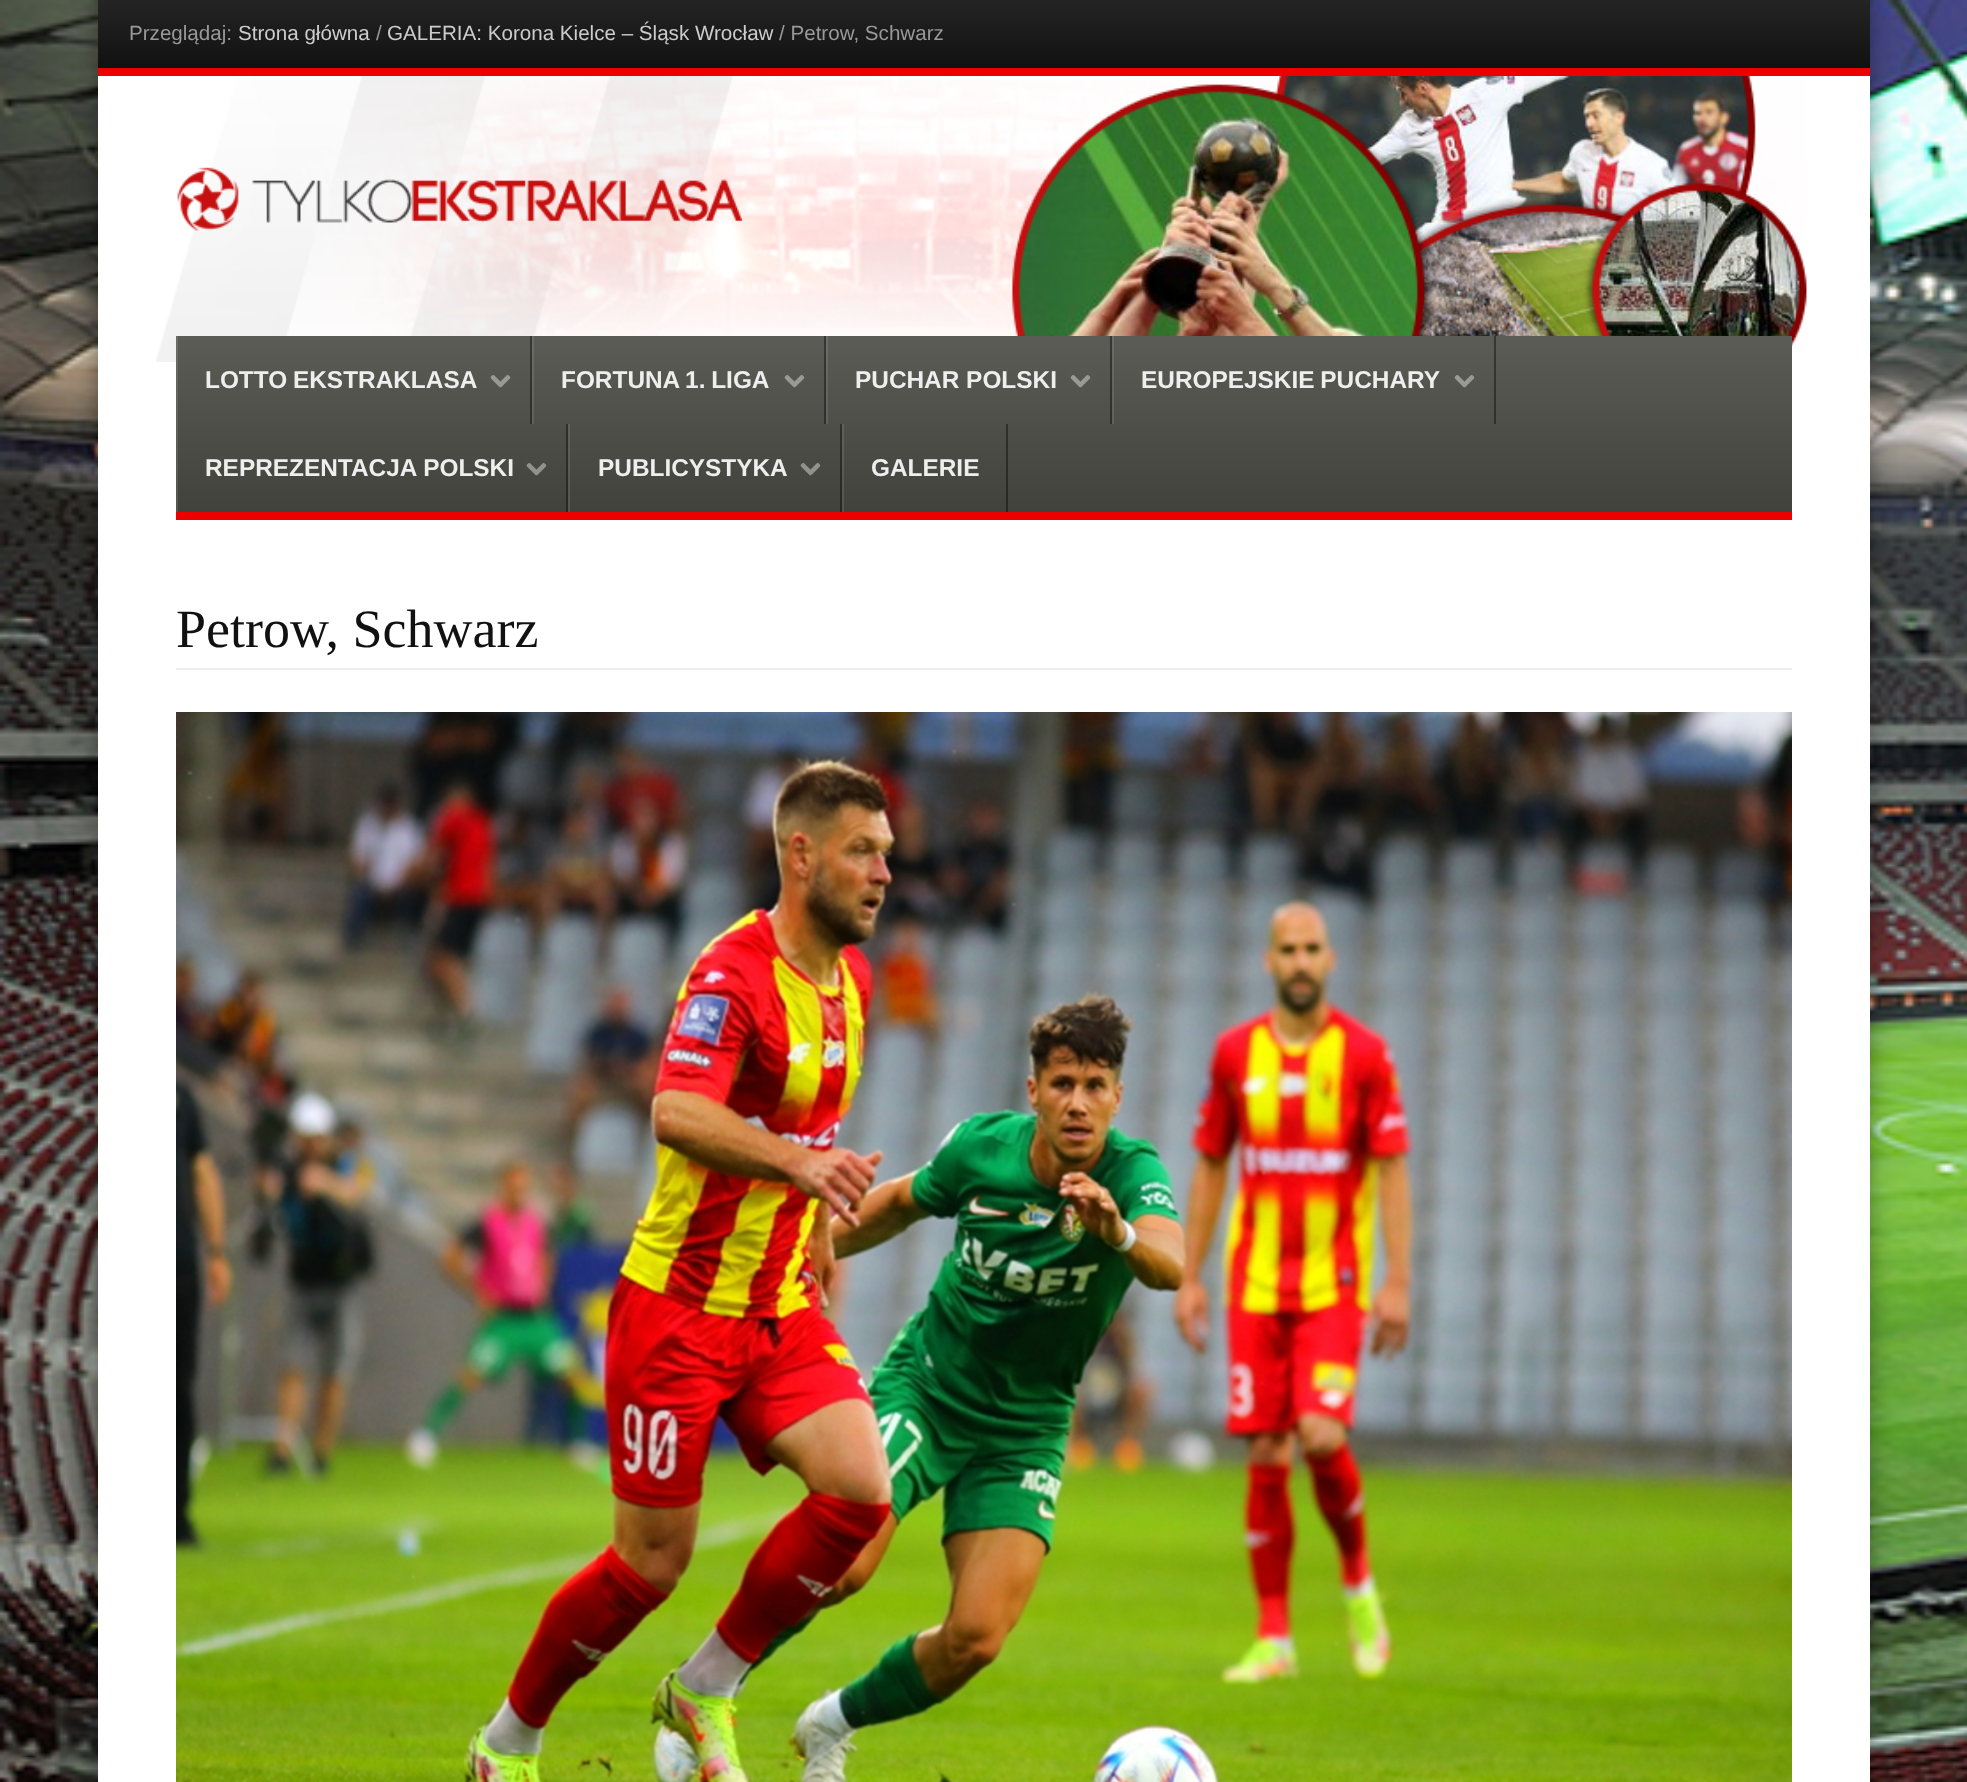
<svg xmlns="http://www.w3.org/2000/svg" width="1967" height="1782">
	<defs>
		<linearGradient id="g1" gradientUnits="userSpaceOnUse" x1="984" y1="0" x2="984" y2="68"><stop offset="0" stop-color="#242424" /><stop offset="1" stop-color="#111111" /></linearGradient>
		<linearGradient id="g2" gradientUnits="userSpaceOnUse" x1="984" y1="336" x2="984" y2="512"><stop offset="0" stop-color="#5C5C57" /><stop offset="1" stop-color="#42423C" /></linearGradient>
	</defs>
	<rect width="100%" height="100%" fill="#FFFFFF" />
	<image x="0" y="0" width="1967" height="1782" href="assets/img1.png" />
	<rect x="98" y="0" width="1772" height="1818" fill="#000000" fill-opacity="0.4" filter="blur(12px)" />
	<rect x="98" y="76" width="1772" height="1706" fill="#FFFFFF" />
	<rect x="98" y="0" width="1772" height="68" fill="url(#g1)" />
	<rect x="98" y="68" width="1772" height="8" fill="#ED0000" />
	<text x="129" y="40" font-family="Liberation Sans" font-size="20.6" fill="#999999">Przeglądaj:</text>
	<text x="238" y="40" font-family="Liberation Sans" font-size="20.6" fill="#CCCCCC">Strona główna</text>
	<text x="376" y="40" font-family="Liberation Sans" font-size="20.6" fill="#999999">/</text>
	<text x="387" y="40" font-family="Liberation Sans" font-size="20.6" fill="#CCCCCC">GALERIA: Korona Kielce – Śląsk Wrocław</text>
	<text x="779" y="40" font-family="Liberation Sans" font-size="20.6" fill="#999999">/ Petrow, Schwarz</text>
	<image x="156" y="76" width="1651" height="286" href="assets/img2.png" />
	<image x="177" y="167" width="565" height="64" href="assets/img3.png" />
	<rect x="176" y="336" width="1616" height="176" fill="url(#g2)" />
	<rect x="176" y="512" width="1616" height="8" fill="#ED0000" />
	<rect x="530" y="336" width="2" height="88" fill="#000000" fill-opacity="0.4" />
	<rect x="176" y="336" width="2" height="88" fill="#FFFFFF" fill-opacity="0.1" />
	<text x="205" y="388" word-spacing="-1" font-family="Liberation Sans" font-size="24.4" font-weight="700" fill="#EEEEEE">LOTTO EKSTRAKLASA</text>
	<image x="490" y="375" width="21" height="13" href="assets/img4.png" />
	<rect x="824" y="336" width="2" height="88" fill="#000000" fill-opacity="0.4" />
	<rect x="532" y="336" width="2" height="88" fill="#FFFFFF" fill-opacity="0.1" />
	<text x="561" y="388" word-spacing="-1" font-family="Liberation Sans" font-size="24.4" font-weight="700" fill="#EEEEEE">FORTUNA 1. LIGA</text>
	<image x="784" y="375" width="21" height="13" href="assets/img4.png" />
	<rect x="1110" y="336" width="2" height="88" fill="#000000" fill-opacity="0.4" />
	<rect x="826" y="336" width="2" height="88" fill="#FFFFFF" fill-opacity="0.1" />
	<text x="855" y="388" font-family="Liberation Sans" font-size="24.4" font-weight="700" fill="#EEEEEE">PUCHAR POLSKI</text>
	<image x="1070" y="375" width="21" height="13" href="assets/img4.png" />
	<rect x="1494" y="336" width="2" height="88" fill="#000000" fill-opacity="0.4" />
	<rect x="1112" y="336" width="2" height="88" fill="#FFFFFF" fill-opacity="0.1" />
	<text x="1141" y="388" word-spacing="-1" font-family="Liberation Sans" font-size="24.4" font-weight="700" fill="#EEEEEE">EUROPEJSKIE PUCHARY</text>
	<image x="1454" y="375" width="21" height="13" href="assets/img4.png" />
	<rect x="566" y="424" width="2" height="88" fill="#000000" fill-opacity="0.4" />
	<rect x="176" y="424" width="2" height="88" fill="#FFFFFF" fill-opacity="0.1" />
	<text x="205" y="476" font-family="Liberation Sans" font-size="24.4" font-weight="700" fill="#EEEEEE">REPREZENTACJA POLSKI</text>
	<image x="526" y="463" width="21" height="13" href="assets/img5.png" />
	<rect x="840" y="424" width="2" height="88" fill="#000000" fill-opacity="0.4" />
	<rect x="568" y="424" width="2" height="88" fill="#FFFFFF" fill-opacity="0.1" />
	<text x="598" y="476" font-family="Liberation Sans" font-size="24.4" font-weight="700" fill="#EEEEEE">PUBLICYSTYKA</text>
	<image x="800" y="463" width="21" height="13" href="assets/img5.png" />
	<rect x="1006" y="424" width="2" height="88" fill="#000000" fill-opacity="0.4" />
	<rect x="842" y="424" width="2" height="88" fill="#FFFFFF" fill-opacity="0.1" />
	<text x="871" y="476" font-family="Liberation Sans" font-size="24.4" font-weight="700" fill="#EEEEEE">GALERIE</text>
	<rect x="176" y="668" width="1616" height="2" fill="#EEEEEE" />
	<text x="176" y="647" font-family="Liberation Serif" font-size="54" fill="#111111">Petrow, Schwarz</text>
	<image x="176" y="712" width="1616" height="1070" href="assets/img6.png" />
</svg>
